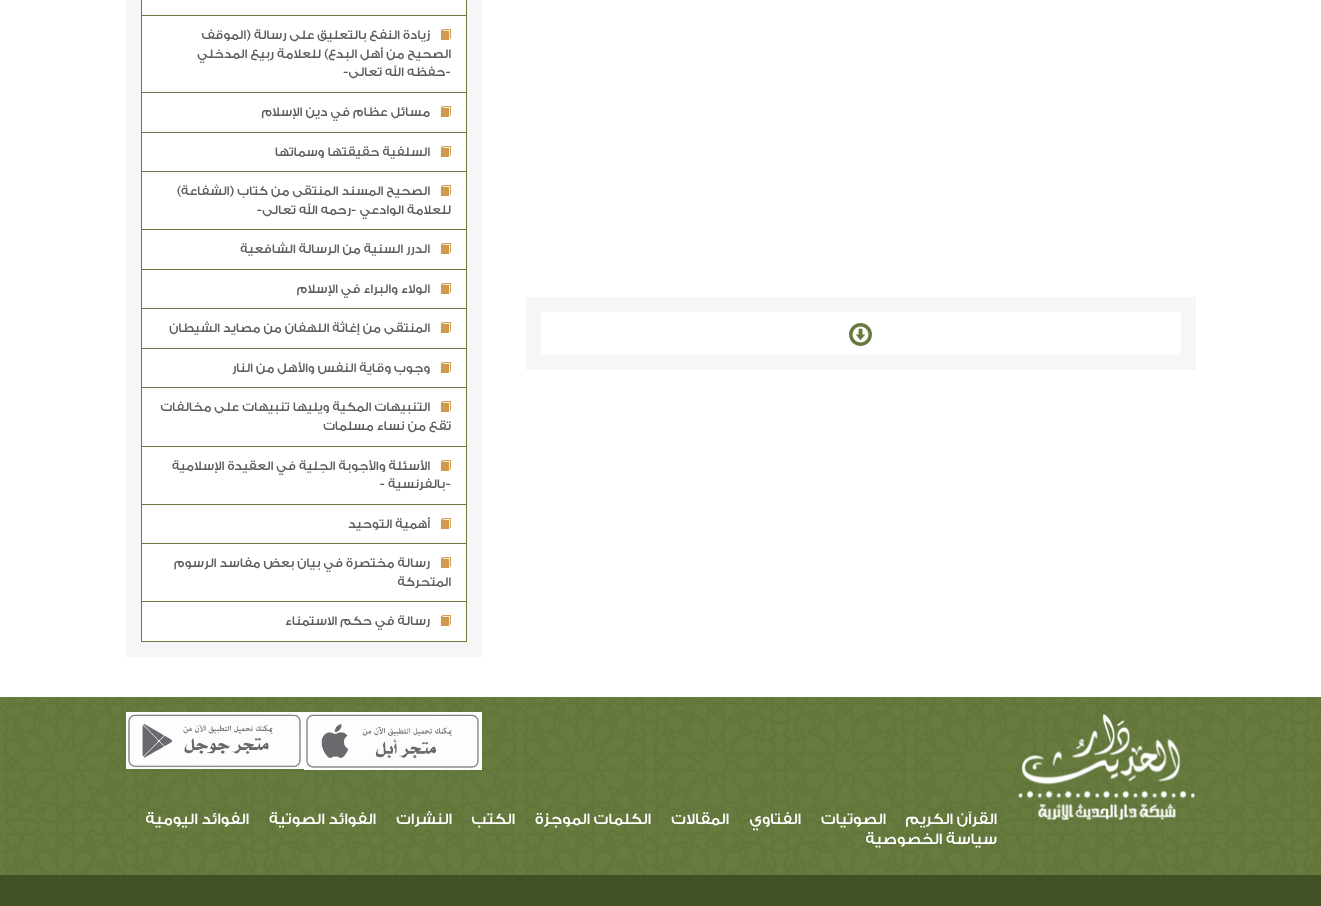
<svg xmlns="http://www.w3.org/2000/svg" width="1321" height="906">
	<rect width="100%" height="100%" fill="#FFFFFF" />
	<rect x="526" y="297" width="670" height="73" fill="#F6F6F6" />
	<rect x="541" y="312" width="640" height="43" fill="#FFFFFF" />
	<image x="849" y="323" width="23" height="23" href="assets/img1.png" />
	<rect x="126" y="0" width="356" height="657" fill="#F6F6F6" />
	<rect x="141.5" y="-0.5" width="325" height="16" fill="#FFFFFF" stroke="#677B3F" />
	<rect x="141.5" y="15.5" width="325" height="77" fill="#FFFFFF" stroke="#677B3F" />
	<image x="440" y="29" width="11" height="11" href="assets/img2.png" />
	<g font-family="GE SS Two" font-size="13" font-weight="500" direction="rtl" fill="#5D5D5D">
		<text x="430" y="39">زيادة النفع بالتعليق على رسالة (الموقف</text>
		<text x="451" y="58">الصحيح من أهل البدع) للعلامة ربيع المدخلي</text>
		<text x="451" y="76">-حفظه الله تعالى-</text>
	</g>
	<rect x="141.5" y="92.5" width="325" height="40" fill="#FFFFFF" stroke="#677B3F" />
	<image x="440" y="106" width="11" height="11" href="assets/img2.png" />
	<text x="430" y="116" font-family="GE SS Two" font-size="13" font-weight="500" direction="rtl" fill="#5D5D5D">مسائل عظام في دين الإسلام</text>
	<rect x="141.5" y="132.5" width="325" height="39" fill="#FFFFFF" stroke="#677B3F" />
	<image x="440" y="146" width="11" height="11" href="assets/img2.png" />
	<text x="430" y="156" font-family="GE SS Two" font-size="13" font-weight="500" direction="rtl" fill="#5D5D5D">السلفية حقيقتها وسماتها</text>
	<rect x="141.5" y="171.5" width="325" height="58" fill="#FFFFFF" stroke="#677B3F" />
	<image x="440" y="185" width="11" height="11" href="assets/img2.png" />
	<g font-family="GE SS Two" font-size="13" font-weight="500" direction="rtl" fill="#5D5D5D">
		<text x="430" y="195">الصحيح المسند المنتقى من كتاب (الشفاعة)</text>
		<text x="451" y="214">للعلامة الوادعي -رحمه الله تعالى-</text>
	</g>
	<rect x="141.5" y="229.5" width="325" height="40" fill="#FFFFFF" stroke="#677B3F" />
	<image x="440" y="243" width="11" height="11" href="assets/img2.png" />
	<text x="430" y="253" font-family="GE SS Two" font-size="13" font-weight="500" direction="rtl" fill="#5D5D5D">الدرر السنية من الرسالة الشافعية</text>
	<rect x="141.5" y="269.5" width="325" height="39" fill="#FFFFFF" stroke="#677B3F" />
	<image x="440" y="283" width="11" height="11" href="assets/img2.png" />
	<text x="430" y="293" font-family="GE SS Two" font-size="13" font-weight="500" direction="rtl" fill="#5D5D5D">الولاء والبراء في الإسلام</text>
	<rect x="141.5" y="308.5" width="325" height="40" fill="#FFFFFF" stroke="#677B3F" />
	<image x="440" y="322" width="11" height="11" href="assets/img2.png" />
	<text x="430" y="332" font-family="GE SS Two" font-size="13" font-weight="500" direction="rtl" fill="#5D5D5D">المنتقى من إغاثة اللهفان من مصايد الشيطان</text>
	<rect x="141.5" y="348.5" width="325" height="39" fill="#FFFFFF" stroke="#677B3F" />
	<image x="440" y="362" width="11" height="11" href="assets/img2.png" />
	<text x="430" y="372" font-family="GE SS Two" font-size="13" font-weight="500" direction="rtl" fill="#5D5D5D">وجوب وقاية النفس والأهل من النار</text>
	<rect x="141.5" y="387.5" width="325" height="59" fill="#FFFFFF" stroke="#677B3F" />
	<image x="440" y="401" width="11" height="11" href="assets/img2.png" />
	<g font-family="GE SS Two" font-size="13" font-weight="500" direction="rtl" fill="#5D5D5D">
		<text x="430" y="411">التنبيهات المكية ويليها تنبيهات على مخالفات</text>
		<text x="451" y="430">تقع من نساء مسلمات</text>
	</g>
	<rect x="141.5" y="446.5" width="325" height="58" fill="#FFFFFF" stroke="#677B3F" />
	<image x="440" y="460" width="11" height="11" href="assets/img2.png" />
	<g font-family="GE SS Two" font-size="13" font-weight="500" direction="rtl" fill="#5D5D5D">
		<text x="430" y="470">الأسئلة والأجوبة الجلية في العقيدة الإسلامية</text>
		<text x="451" y="488">-بالفرنسية -</text>
	</g>
	<rect x="141.5" y="504.5" width="325" height="39" fill="#FFFFFF" stroke="#677B3F" />
	<image x="440" y="518" width="11" height="11" href="assets/img2.png" />
	<text x="430" y="528" font-family="GE SS Two" font-size="13" font-weight="500" direction="rtl" fill="#5D5D5D">أهمية التوحيد</text>
	<rect x="141.5" y="543.5" width="325" height="58" fill="#FFFFFF" stroke="#677B3F" />
	<image x="440" y="557" width="11" height="11" href="assets/img2.png" />
	<g font-family="GE SS Two" font-size="13" font-weight="500" direction="rtl" fill="#5D5D5D">
		<text x="430" y="567">رسالة مختصرة في بيان بعض مفاسد الرسوم</text>
		<text x="451" y="586">المتحركة</text>
	</g>
	<rect x="141.5" y="601.5" width="325" height="40" fill="#FFFFFF" stroke="#677B3F" />
	<image x="440" y="615" width="11" height="11" href="assets/img2.png" />
	<text x="430" y="625" font-family="GE SS Two" font-size="13" font-weight="500" direction="rtl" fill="#5D5D5D">رسالة في حكم الاستمناء</text>
	<rect x="0" y="697" width="1321" height="178" fill="#677B3F" />
	<image x="0" y="697" width="1321" height="178" href="assets/img3.png" />
	<image x="1018" y="714" width="177" height="107" href="assets/img4.png" />
	<image x="304" y="712" width="178" height="58" href="assets/img5.png" />
	<image x="126" y="712" width="178" height="57" href="assets/img6.png" />
	<g font-family="GE SS Two" font-size="16" font-weight="500" direction="rtl" fill="#FFFFFF">
		<text x="997" y="824">القرآن الكريم</text>
		<text x="886" y="824">الصوتيات</text>
		<text x="801" y="824">الفتاوي</text>
		<text x="729" y="824">المقالات</text>
		<text x="651" y="824">الكلمات الموجزة</text>
		<text x="515" y="824">الكتب</text>
		<text x="452" y="824">النشرات</text>
		<text x="376" y="824">الفوائد الصوتية</text>
		<text x="249" y="824">الفوائد اليومية</text>
		<text x="997" y="844">سياسة الخصوصية</text>
	</g>
	<rect x="0" y="875" width="1321" height="31" fill="#425125" />
</svg>
